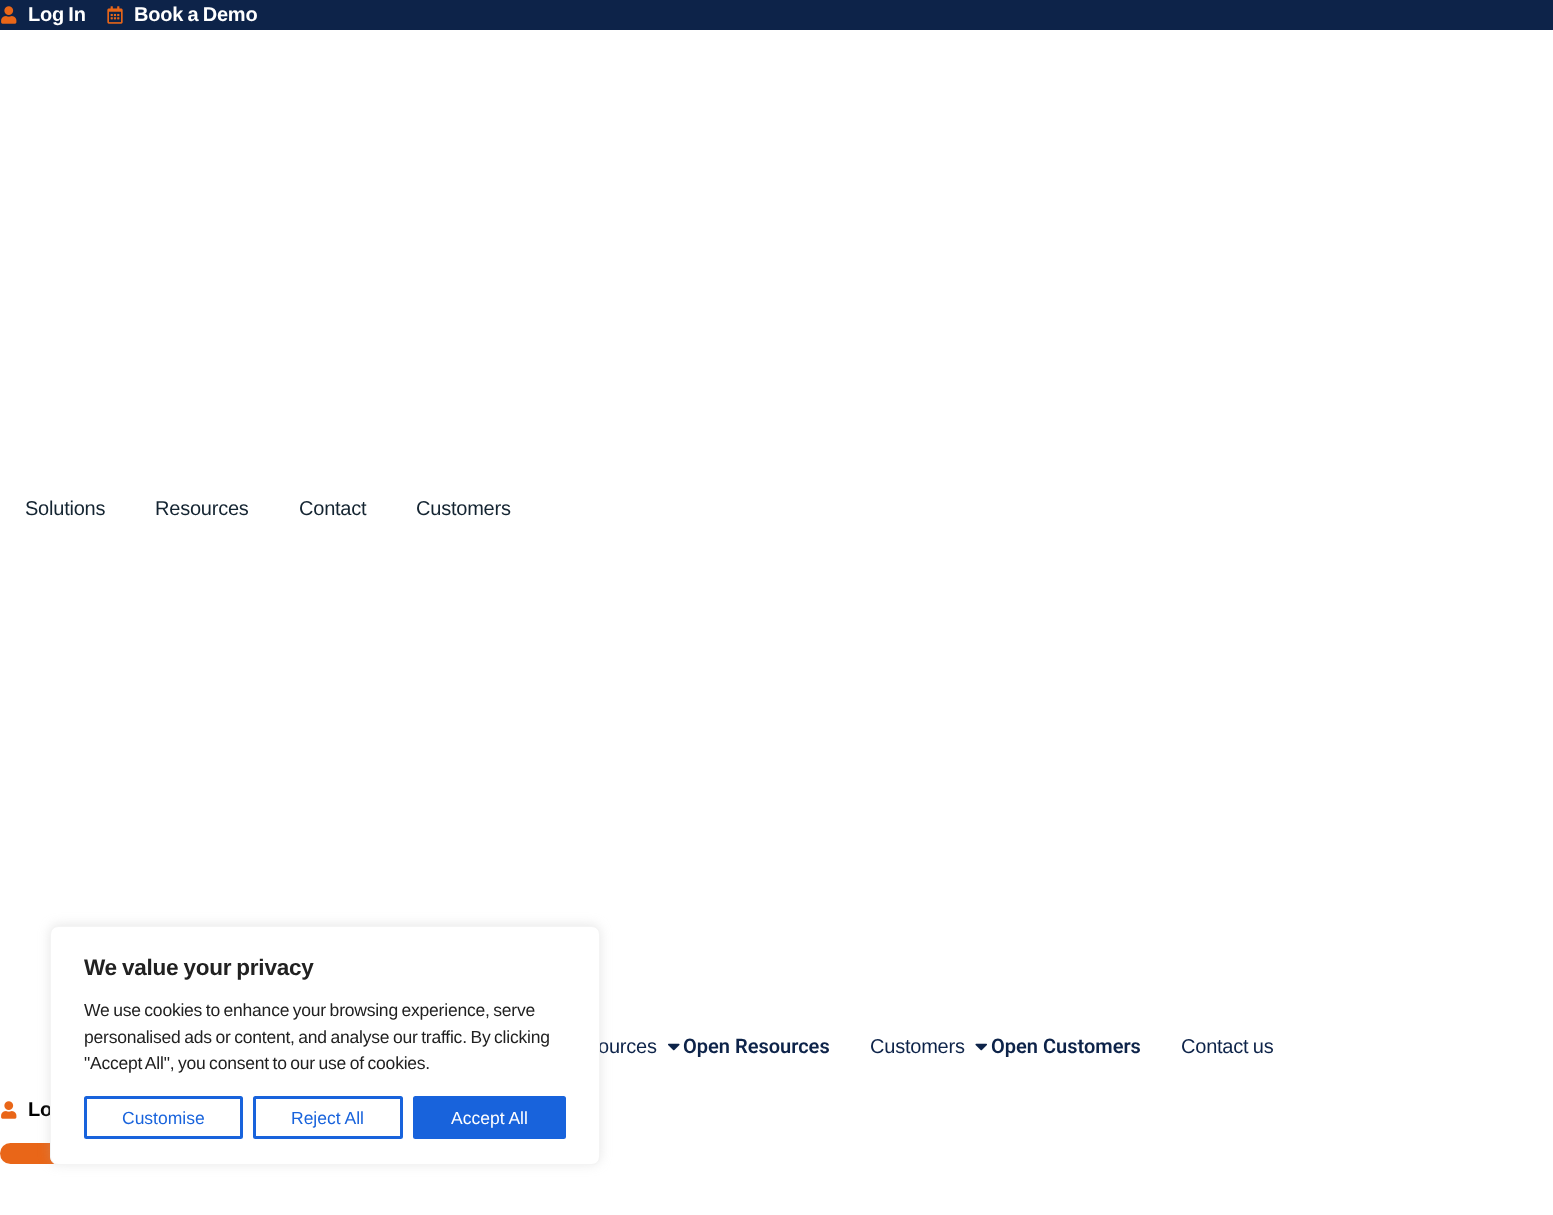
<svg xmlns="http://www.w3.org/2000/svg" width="1553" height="1215">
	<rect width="100%" height="100%" fill="#FFFFFF" />
	<rect x="0" y="0" width="1553" height="30" fill="#0D2349" />
	<image x="1" y="6" width="16" height="18" href="assets/img1.png" />
	<text x="28" y="21" word-spacing="-1" font-family="Liberation Sans" font-size="20" font-weight="700" letter-spacing="-0.22" fill="#FFFFFF">Log In</text>
	<image x="107" y="6" width="16" height="18" href="assets/img2.png" />
	<text x="134" y="21" word-spacing="-1" font-family="Liberation Sans" font-size="20" font-weight="700" letter-spacing="-0.22" fill="#FFFFFF">Book a Demo</text>
	<g font-family="Liberation Sans" font-size="20" letter-spacing="-0.22" fill="#142431">
		<text x="25" y="515">Solutions</text>
		<text x="155" y="515">Resources</text>
		<text x="299" y="515">Contact</text>
		<text x="416" y="515">Customers</text>
	</g>
	<text x="598" y="1053" font-family="Liberation Sans" font-size="20" letter-spacing="-0.22" fill="#0D2349">ources</text>
	<image x="668" y="1043" width="12" height="8" href="assets/img3.png" />
	<text x="683" y="1053" font-family="Roboto" font-size="20" font-weight="600" fill="#0D2349">Open Resources</text>
	<text x="870" y="1053" font-family="Liberation Sans" font-size="20" letter-spacing="-0.22" fill="#0D2349">Customers</text>
	<image x="975" y="1043" width="12" height="8" href="assets/img4.png" />
	<text x="991" y="1053" font-family="Roboto" font-size="20" font-weight="600" fill="#0D2349">Open Customers</text>
	<text x="1181" y="1053" word-spacing="-1" font-family="Liberation Sans" font-size="20" letter-spacing="-0.22" fill="#0D2349">Contact us</text>
	<image x="1" y="1101" width="16" height="18" href="assets/img5.png" />
	<text x="28" y="1116" word-spacing="-1" font-family="Liberation Sans" font-size="20" font-weight="700" letter-spacing="-0.22" fill="#000000">Lo</text>
	<rect x="0" y="1143" width="116" height="21" rx="10.5" fill="#E96618" />
	<rect x="50" y="925" width="550" height="239" rx="8" fill="#ACABAB" fill-opacity="0.3" filter="blur(6px)" />
	<rect x="50.5" y="926.5" width="549" height="238" rx="7.5" fill="#FFFFFF" stroke="#F4F4F4" />
	<text x="84" y="975" word-spacing="-1" font-family="Liberation Sans" font-size="22.5" font-weight="700" letter-spacing="-0.22" fill="#212121">We value your privacy</text>
	<g font-family="Liberation Sans" font-size="17.5" letter-spacing="-0.22" fill="#212121">
		<text x="84" y="1016" word-spacing="-1">We use cookies to enhance your browsing experience, serve</text>
		<text x="84" y="1043" word-spacing="-1">personalised ads or content, and analyse our traffic. By clicking</text>
		<text x="84" y="1069" word-spacing="-1">"Accept All", you consent to our use of cookies.</text>
	</g>
	<rect x="85.5" y="1097.5" width="156" height="40" rx="1" fill="none" stroke="#1863DC" stroke-width="3" />
	<text x="122" y="1124" font-family="Liberation Sans" font-size="17.5" fill="#1863DC">Customise</text>
	<rect x="254.5" y="1097.5" width="147" height="40" rx="1" fill="none" stroke="#1863DC" stroke-width="3" />
	<text x="291" y="1124" font-family="Liberation Sans" font-size="17.5" fill="#1863DC">Reject All</text>
	<rect x="414.5" y="1097.5" width="150" height="40" rx="1" fill="#1863DC" stroke="#1863DC" stroke-width="3" />
	<text x="451" y="1124" font-family="Liberation Sans" font-size="17.5" fill="#FFFFFF">Accept All</text>
</svg>
